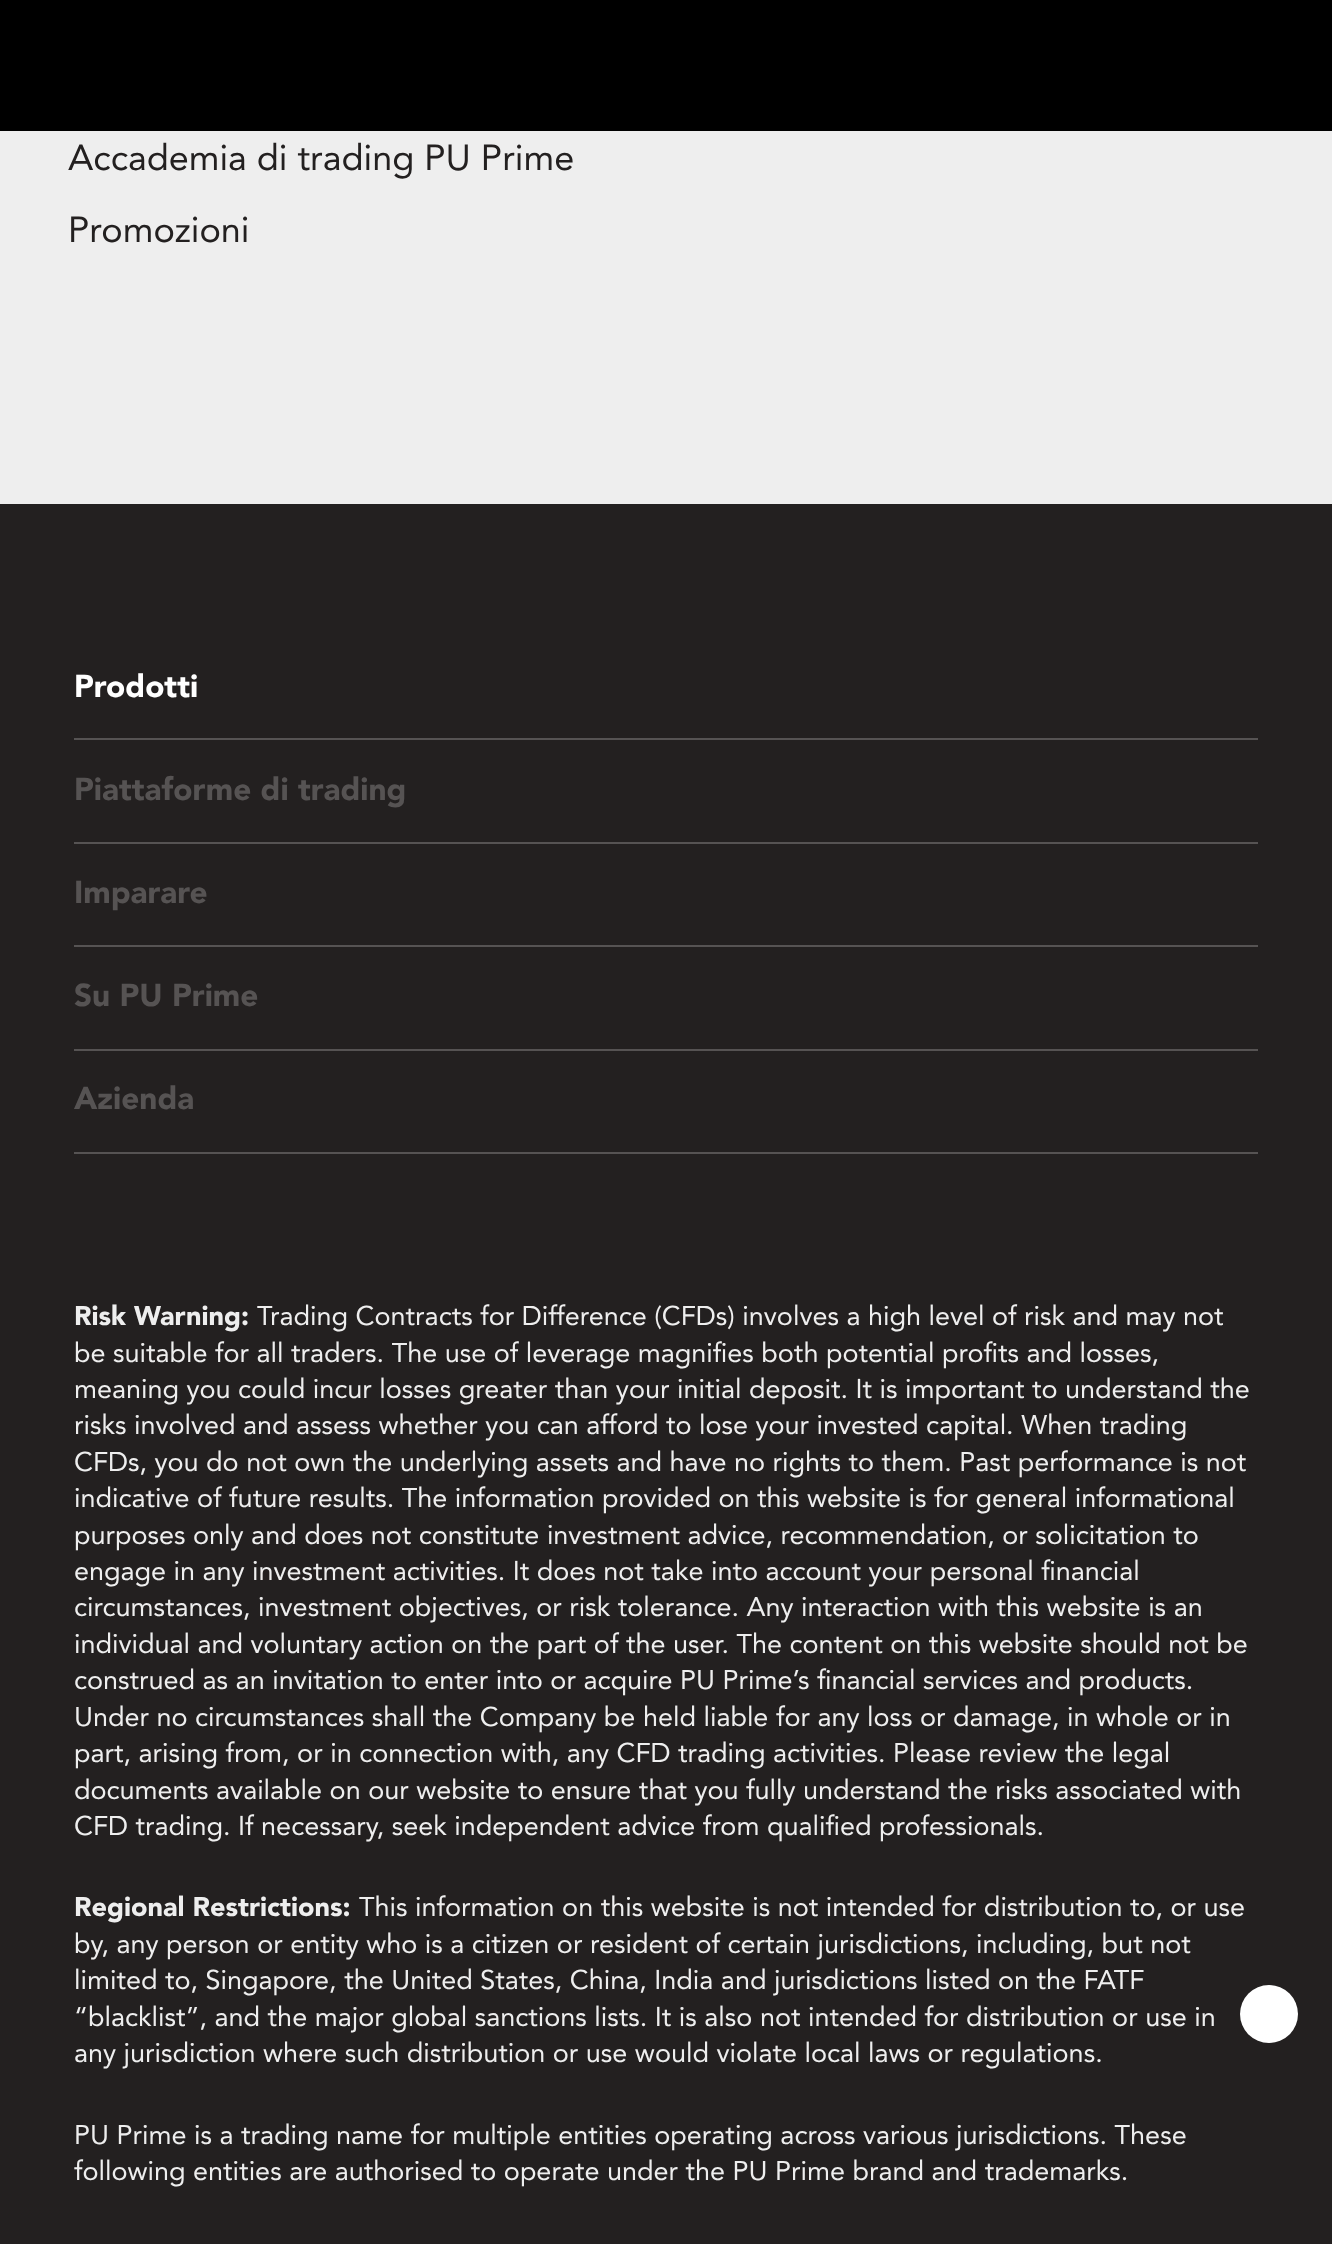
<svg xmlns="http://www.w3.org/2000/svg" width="1332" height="2244">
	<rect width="100%" height="100%" fill="#EEEEEE" />
	<rect x="0" y="0" width="1332" height="131" fill="#000000" />
	<g font-family="Avenir" font-size="36" fill="#232020">
		<text x="68" y="170">Accademia di trading PU Prime</text>
		<text x="68" y="242">Promozioni</text>
	</g>
	<rect x="0" y="504" width="1332" height="1740" fill="#232020" />
	<rect x="74" y="738" width="1184" height="2" fill="#565353" />
	<text x="74" y="697" font-family="Avenir" font-size="31.5" font-weight="900" fill="#FFFFFF">Prodotti</text>
	<rect x="74" y="842" width="1184" height="2" fill="#565353" />
	<text x="74" y="800" font-family="Avenir" font-size="31.5" font-weight="900" fill="#565353">Piattaforme di trading</text>
	<rect x="74" y="945" width="1184" height="2" fill="#565353" />
	<text x="74" y="903" font-family="Avenir" font-size="31.5" font-weight="900" fill="#565353">Imparare</text>
	<rect x="74" y="1049" width="1184" height="2" fill="#565353" />
	<text x="74" y="1006" font-family="Avenir" font-size="31.5" font-weight="900" fill="#565353">Su PU Prime</text>
	<rect x="74" y="1152" width="1184" height="2" fill="#565353" />
	<text x="74" y="1109" font-family="Avenir" font-size="31.5" font-weight="900" fill="#565353">Azienda</text>
	<text x="74" y="1325" font-family="Avenir" font-size="27" font-weight="900" fill="#EEEEEE">Risk Warning:</text>
	<g font-family="Avenir" font-size="27" fill="#EEEEEE">
		<text x="257" y="1325">Trading Contracts for Difference (CFDs) involves a high level of risk and may not</text>
		<text x="74" y="1362">be suitable for all traders. The use of leverage magnifies both potential profits and losses,</text>
		<text x="74" y="1398">meaning you could incur losses greater than your initial deposit. It is important to understand the</text>
		<text x="74" y="1434">risks involved and assess whether you can afford to lose your invested capital. When trading</text>
		<text x="74" y="1471">CFDs, you do not own the underlying assets and have no rights to them. Past performance is not</text>
		<text x="74" y="1507">indicative of future results. The information provided on this website is for general informational</text>
		<text x="74" y="1544">purposes only and does not constitute investment advice, recommendation, or solicitation to</text>
		<text x="74" y="1580">engage in any investment activities. It does not take into account your personal financial</text>
		<text x="74" y="1616">circumstances, investment objectives, or risk tolerance. Any interaction with this website is an</text>
		<text x="74" y="1653">individual and voluntary action on the part of the user. The content on this website should not be</text>
		<text x="74" y="1689">construed as an invitation to enter into or acquire PU Prime’s financial services and products.</text>
		<text x="74" y="1726">Under no circumstances shall the Company be held liable for any loss or damage, in whole or in</text>
		<text x="74" y="1762">part, arising from, or in connection with, any CFD trading activities. Please review the legal</text>
		<text x="74" y="1799">documents available on our website to ensure that you fully understand the risks associated with</text>
		<text x="74" y="1835">CFD trading. If necessary, seek independent advice from qualified professionals.</text>
	</g>
	<text x="74" y="1916" font-family="Avenir" font-size="27" font-weight="900" fill="#EEEEEE">Regional Restrictions:</text>
	<g font-family="Avenir" font-size="27" fill="#EEEEEE">
		<text x="359" y="1916">This information on this website is not intended for distribution to, or use</text>
		<text x="74" y="1953">by, any person or entity who is a citizen or resident of certain jurisdictions, including, but not</text>
		<text x="74" y="1989">limited to, Singapore, the United States, China, India and jurisdictions listed on the FATF</text>
		<text x="74" y="2026">“blacklist”, and the major global sanctions lists. It is also not intended for distribution or use in</text>
		<text x="74" y="2062">any jurisdiction where such distribution or use would violate local laws or regulations.</text>
		<text x="74" y="2144">PU Prime is a trading name for multiple entities operating across various jurisdictions. These</text>
		<text x="74" y="2180">following entities are authorised to operate under the PU Prime brand and trademarks.</text>
	</g>
	<circle cx="1269" cy="2014" r="29" fill="#FFFFFF" />
</svg>
